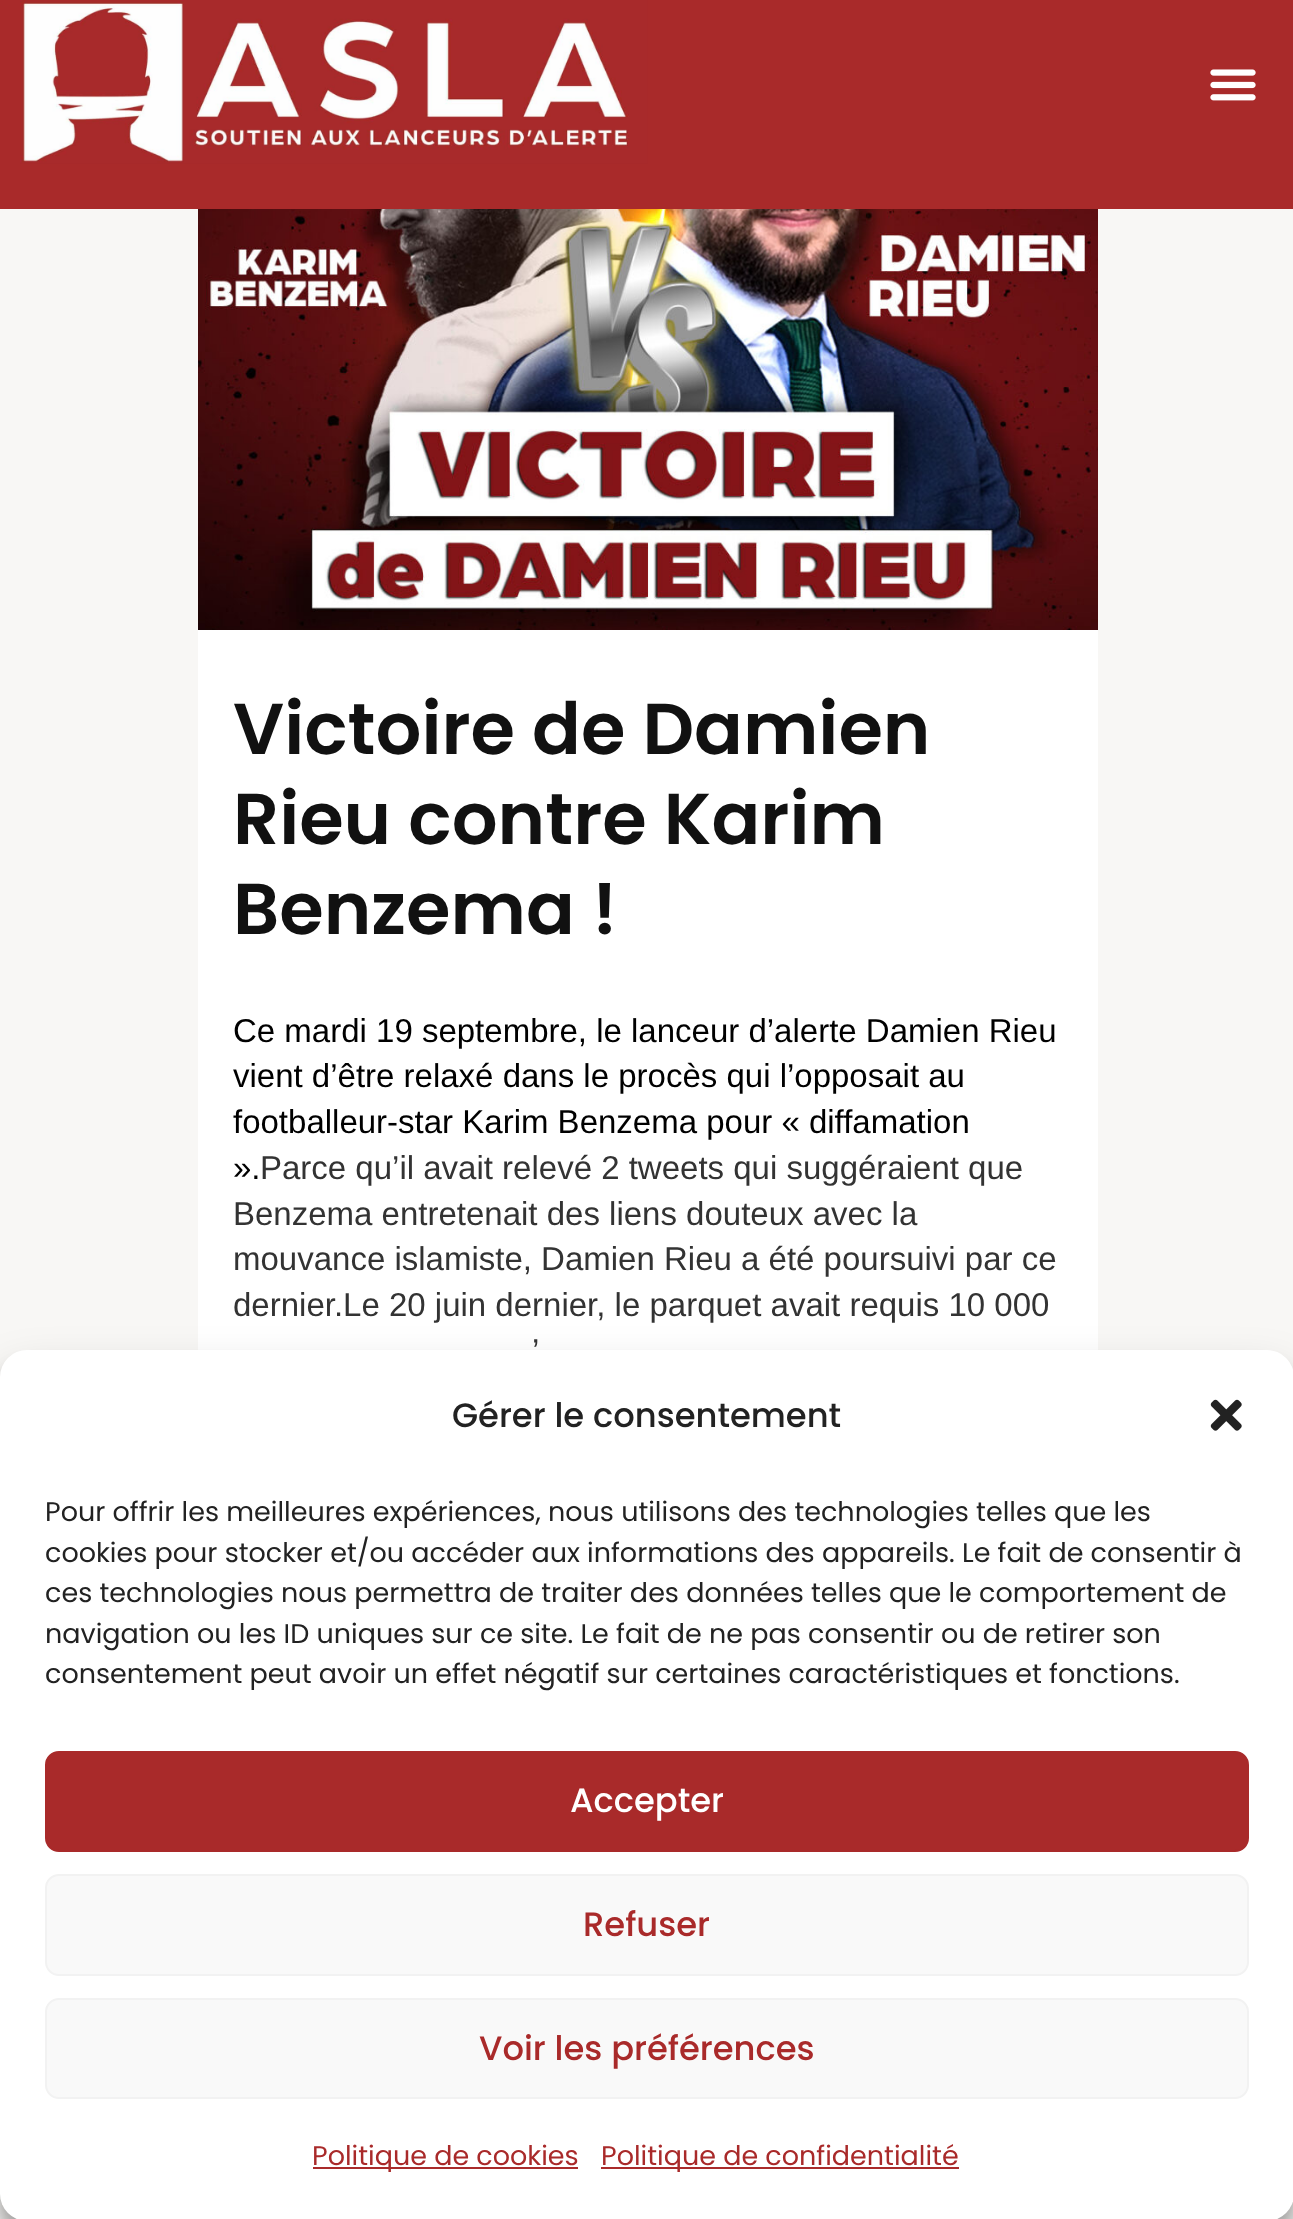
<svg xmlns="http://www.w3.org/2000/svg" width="1293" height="2219">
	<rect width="100%" height="100%" fill="#F8F7F5" />
	<rect x="0" y="0" width="1293" height="209" fill="#A92A2A" />
	<image x="20" y="0" width="628" height="164" href="assets/img1.png" />
	<image x="1210" y="69" width="46" height="32" href="assets/img2.png" />
	<rect x="198" y="630" width="900" height="720" fill="#FFFFFF" />
	<image x="198" y="209" width="900" height="421" href="assets/img3.png" />
	<g font-family="Poppins" font-size="72" font-weight="600" fill="#111111">
		<text x="233" y="754">Victoire de Damien</text>
		<text x="233" y="844">Rieu contre Karim</text>
		<text x="233" y="934">Benzema !</text>
	</g>
	<g font-family="Liberation Sans" font-size="33" fill="#000000">
		<text x="233" y="1042">Ce mardi 19 septembre, le lanceur d’alerte Damien Rieu</text>
		<text x="233" y="1087">vient d’être relaxé dans le procès qui l’opposait au</text>
		<text x="233" y="1133">footballeur-star Karim Benzema pour « diffamation</text>
		<text x="233" y="1179">».</text>
	</g>
	<g font-family="Liberation Sans" font-size="33" fill="#333333">
		<text x="260" y="1179">Parce qu’il avait relevé 2 tweets qui suggéraient que</text>
		<text x="233" y="1225">Benzema entretenait des liens douteux avec la</text>
		<text x="233" y="1270">mouvance islamiste, Damien Rieu a été poursuivi par ce</text>
		<text x="233" y="1316">dernier.Le 20 juin dernier, le parquet avait requis 10 000</text>
		<text x="532" y="1362">’</text>
	</g>
	<rect x="0" y="1364" width="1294" height="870" rx="27" fill="#000000" fill-opacity="0.23" filter="blur(7px)" />
	<rect x="0" y="1373" width="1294" height="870" rx="27" fill="#000000" fill-opacity="0.19" filter="blur(22.5px)" />
	<rect x="0" y="1350" width="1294" height="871" rx="27" fill="#FFFFFF" />
	<text x="452" y="1427" font-family="Poppins" font-size="33.75" font-weight="500" fill="#222222">Gérer le consentement</text>
	<image x="1210" y="1399" width="32" height="32" href="assets/img4.png" />
	<g font-family="Poppins" font-size="27" fill="#222222">
		<text x="45" y="1521">Pour offrir les meilleures expériences, nous utilisons des technologies telles que les</text>
		<text x="45" y="1562">cookies pour stocker et/ou accéder aux informations des appareils. Le fait de consentir à</text>
		<text x="45" y="1602">ces technologies nous permettra de traiter des données telles que le comportement de</text>
		<text x="45" y="1643">navigation ou les ID uniques sur ce site. Le fait de ne pas consentir ou de retirer son</text>
		<text x="45" y="1683">consentement peut avoir un effet négatif sur certaines caractéristiques et fonctions.</text>
	</g>
	<rect x="46" y="1752" width="1202" height="99" rx="13" fill="#A92A2A" stroke="#A92A2A" stroke-width="2" />
	<text x="570" y="1812" font-family="Poppins" font-size="33.75" font-weight="500" fill="#FFFFFF">Accepter</text>
	<rect x="46" y="1875" width="1202" height="100" rx="13" fill="#F9F9F9" stroke="#F2F2F2" stroke-width="2" />
	<text x="583" y="1936" font-family="Poppins" font-size="33.75" font-weight="500" fill="#A92A2A">Refuser</text>
	<rect x="46" y="1999" width="1202" height="99" rx="13" fill="#F9F9F9" stroke="#F2F2F2" stroke-width="2" />
	<text x="479" y="2060" font-family="Poppins" font-size="33.75" font-weight="500" fill="#A92A2A">Voir les préférences</text>
	<rect x="313" y="2167" width="265" height="2" fill="#A92A2A" />
	<text x="312" y="2165" font-family="Poppins" font-size="27" fill="#A92A2A">Politique de cookies</text>
	<rect x="601" y="2167" width="358" height="2" fill="#A92A2A" />
	<text x="601" y="2165" font-family="Poppins" font-size="27" fill="#A92A2A">Politique de confidentialité</text>
</svg>
